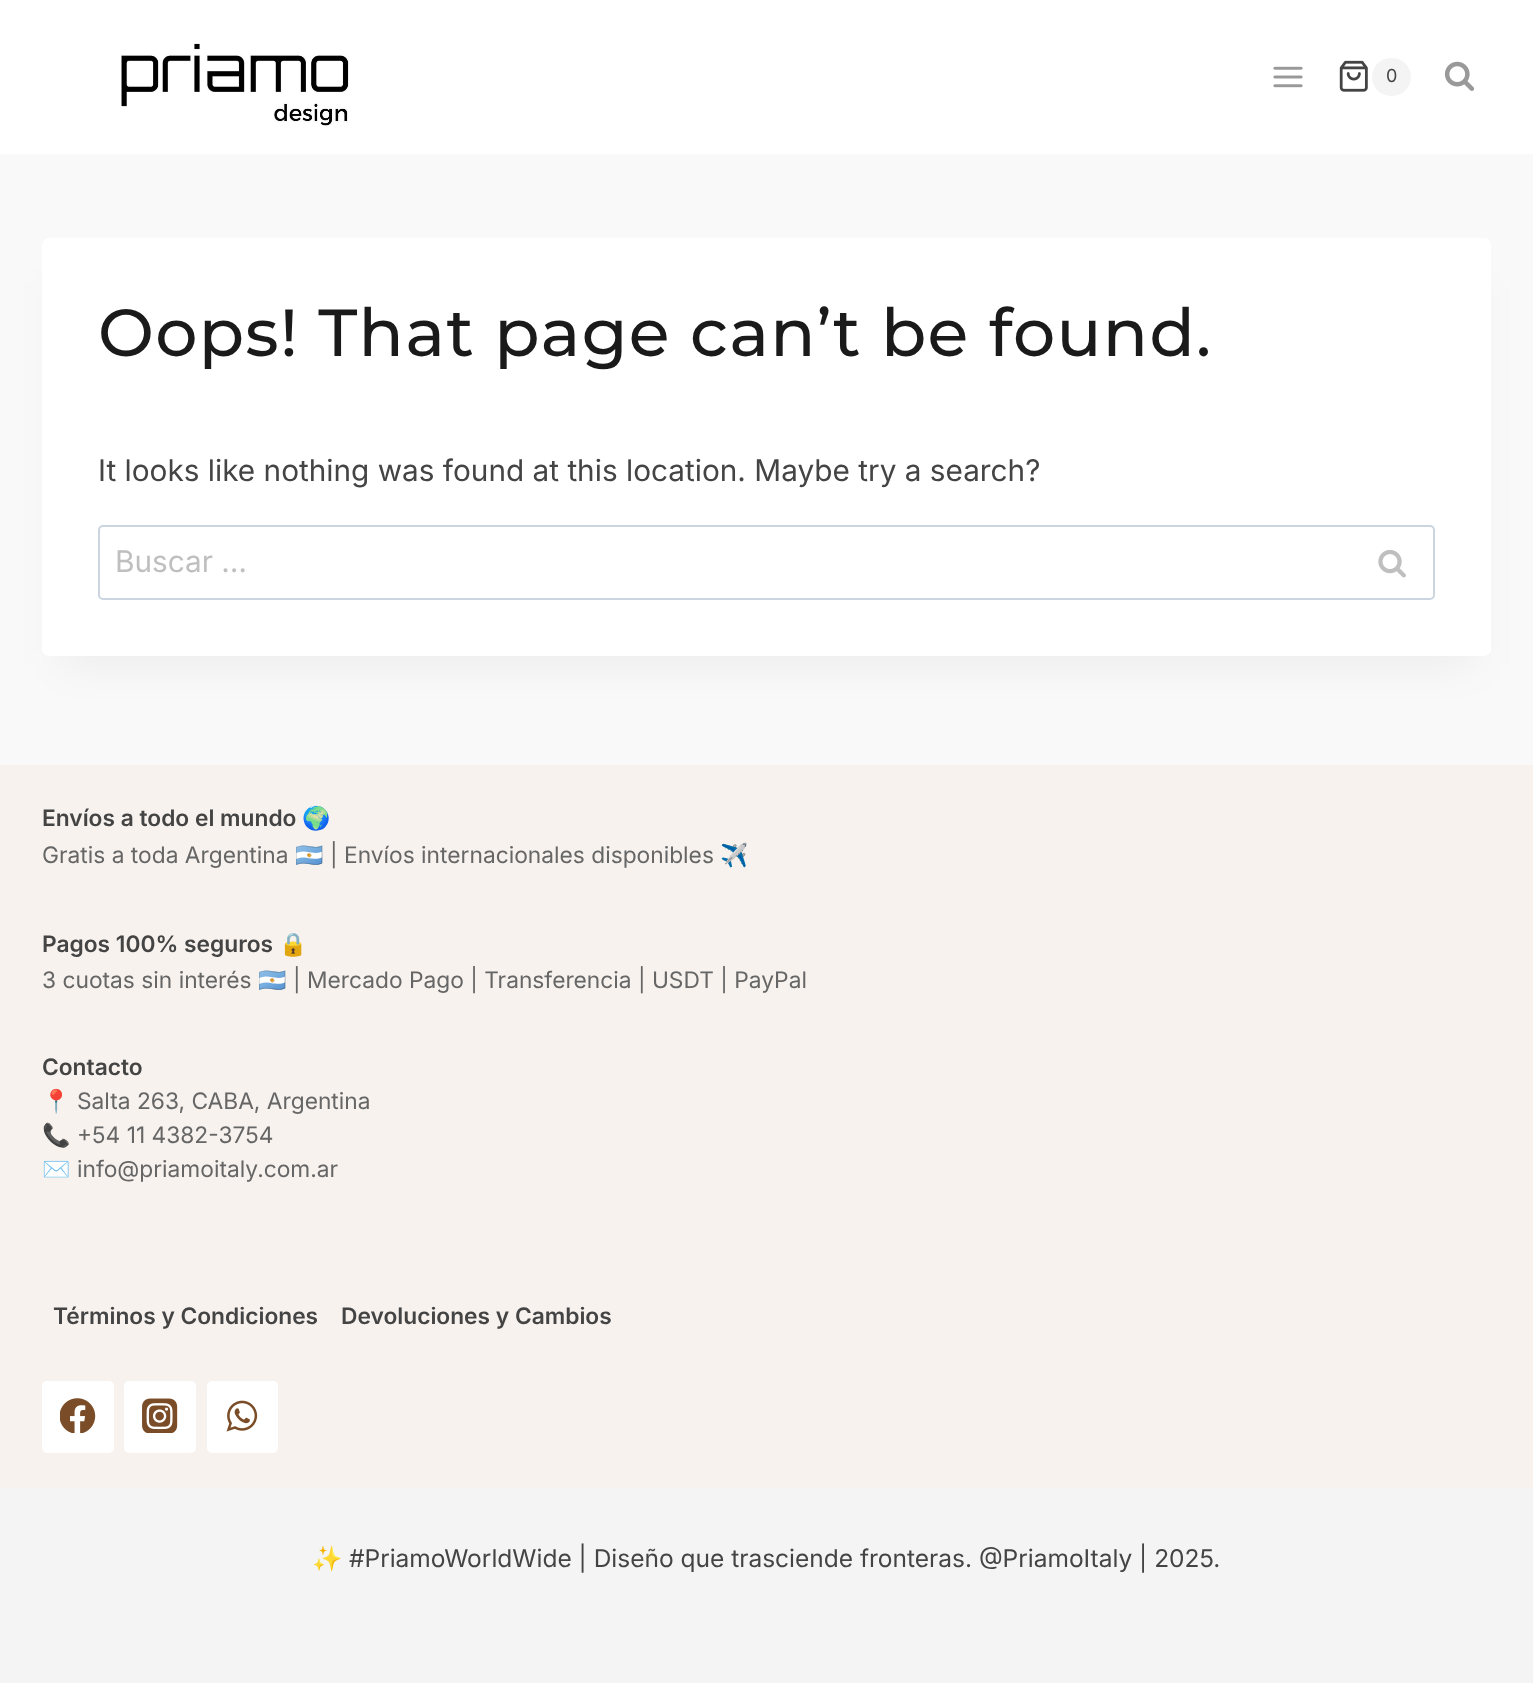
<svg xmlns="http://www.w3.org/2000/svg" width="1533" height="1683">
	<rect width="100%" height="100%" fill="#F9F9F9" />
	<rect x="0" y="0" width="1533" height="154" fill="#FFFFFF" />
	<image x="121" y="43" width="228" height="83" href="assets/img1.png" />
	<image x="1273" y="66" width="30" height="22" href="assets/img2.png" />
	<image x="1339" y="60" width="29" height="32" href="assets/img3.png" />
	<rect x="1372" y="58" width="39" height="38" rx="19" fill="#F4F4F4" />
	<text x="1386" y="82" font-family="Inter" font-size="18" fill="#444444">0</text>
	<image x="1444" y="61" width="31" height="30" href="assets/img4.png" />
	<rect x="60" y="282" width="1414" height="383" fill="#000000" fill-opacity="0.05" filter="blur(22px)" />
	<rect x="42" y="238" width="1449" height="418" rx="7" fill="#FFFFFF" />
	<text x="98" y="356" font-family="Montserrat" font-size="66.5" font-weight="500" letter-spacing="1.3" fill="#1A1A1A">Oops! That page can’t be found.</text>
	<text x="98" y="481" font-family="Inter" font-size="29.75" fill="#444444">It looks like nothing was found at this location. Maybe try a search?</text>
	<rect x="99" y="526" width="1335" height="73" rx="4" fill="none" stroke="#CBD5E0" stroke-width="2" />
	<text x="115" y="572" font-family="Inter" font-size="29.75" fill="#BFBFBF">Buscar …</text>
	<image x="1378" y="549" width="28" height="29" href="assets/img5.png" />
	<rect x="0" y="765" width="1533" height="723" fill="#F7F2EE" />
	<text x="42" y="826" font-family="Inter" font-size="22.75" font-weight="600" fill="#444444">Envíos a todo el mundo</text>
	<text x="302" y="826" font-family="Noto Color Emoji" font-size="22.75" font-weight="700" fill="#444444">🌍</text>
	<text x="42" y="863" font-family="Inter" font-size="22.75" fill="#666666">Gratis a toda Argentina</text>
	<text x="295" y="863" font-family="Noto Color Emoji" font-size="22.75" fill="#666666">🇦🇷</text>
	<text x="330" y="863" font-family="Inter" font-size="22.75" fill="#666666">| Envíos internacionales disponibles</text>
	<text x="720" y="863" font-family="Noto Color Emoji" font-size="22.75" fill="#666666">✈️</text>
	<text x="42" y="952" font-family="Inter" font-size="22.75" font-weight="600" fill="#444444">Pagos 100% seguros</text>
	<text x="279" y="952" font-family="Noto Color Emoji" font-size="22.75" font-weight="700" fill="#444444">🔒</text>
	<text x="42" y="988" font-family="Inter" font-size="22.75" fill="#666666">3 cuotas sin interés</text>
	<text x="258" y="988" font-family="Noto Color Emoji" font-size="22.75" fill="#666666">🇦🇷</text>
	<text x="293" y="988" font-family="Inter" font-size="22.75" fill="#666666">| Mercado Pago | Transferencia | USDT | PayPal</text>
	<text x="42" y="1075" font-family="Inter" font-size="22.75" font-weight="600" fill="#444444">Contacto</text>
	<text x="42" y="1109" font-family="Noto Color Emoji" font-size="22.75" fill="#666666">📍</text>
	<text x="77" y="1109" font-family="Inter" font-size="22.75" fill="#666666">Salta 263, CABA, Argentina</text>
	<text x="42" y="1143" font-family="Noto Color Emoji" font-size="22.75" fill="#666666">📞</text>
	<text x="77" y="1143" font-family="Inter" font-size="22.75" fill="#666666">+54 11 4382-3754</text>
	<text x="42" y="1177" font-family="Noto Color Emoji" font-size="22.75" fill="#666666">✉️</text>
	<text x="77" y="1177" font-family="Inter" font-size="22.75" fill="#666666">info@priamoitaly.com.ar</text>
	<g font-family="Inter" font-size="22.75" font-weight="600" fill="#444444">
		<text x="53" y="1324">Términos y Condiciones</text>
		<text x="341" y="1324">Devoluciones y Cambios</text>
	</g>
	<rect x="42" y="1381" width="72" height="72" rx="5" fill="#FFFFFF" />
	<image x="60" y="1398" width="36" height="35" href="assets/img6.png" />
	<rect x="124" y="1381" width="72" height="72" rx="5" fill="#FFFFFF" />
	<image x="142" y="1398" width="36" height="35" href="assets/img7.png" />
	<rect x="207" y="1381" width="71" height="72" rx="5" fill="#FFFFFF" />
	<image x="226" y="1400" width="32" height="32" href="assets/img8.png" />
	<rect x="0" y="1488" width="1533" height="195" fill="#F4F4F4" />
	<text x="312" y="1567" font-family="Noto Color Emoji" font-size="24.5" fill="#444444">✨</text>
	<text x="349" y="1567" font-family="Inter" font-size="24.5" fill="#444444">#PriamoWorldWide | Diseño que trasciende fronteras. @PriamoItaly | 2025.</text>
</svg>
